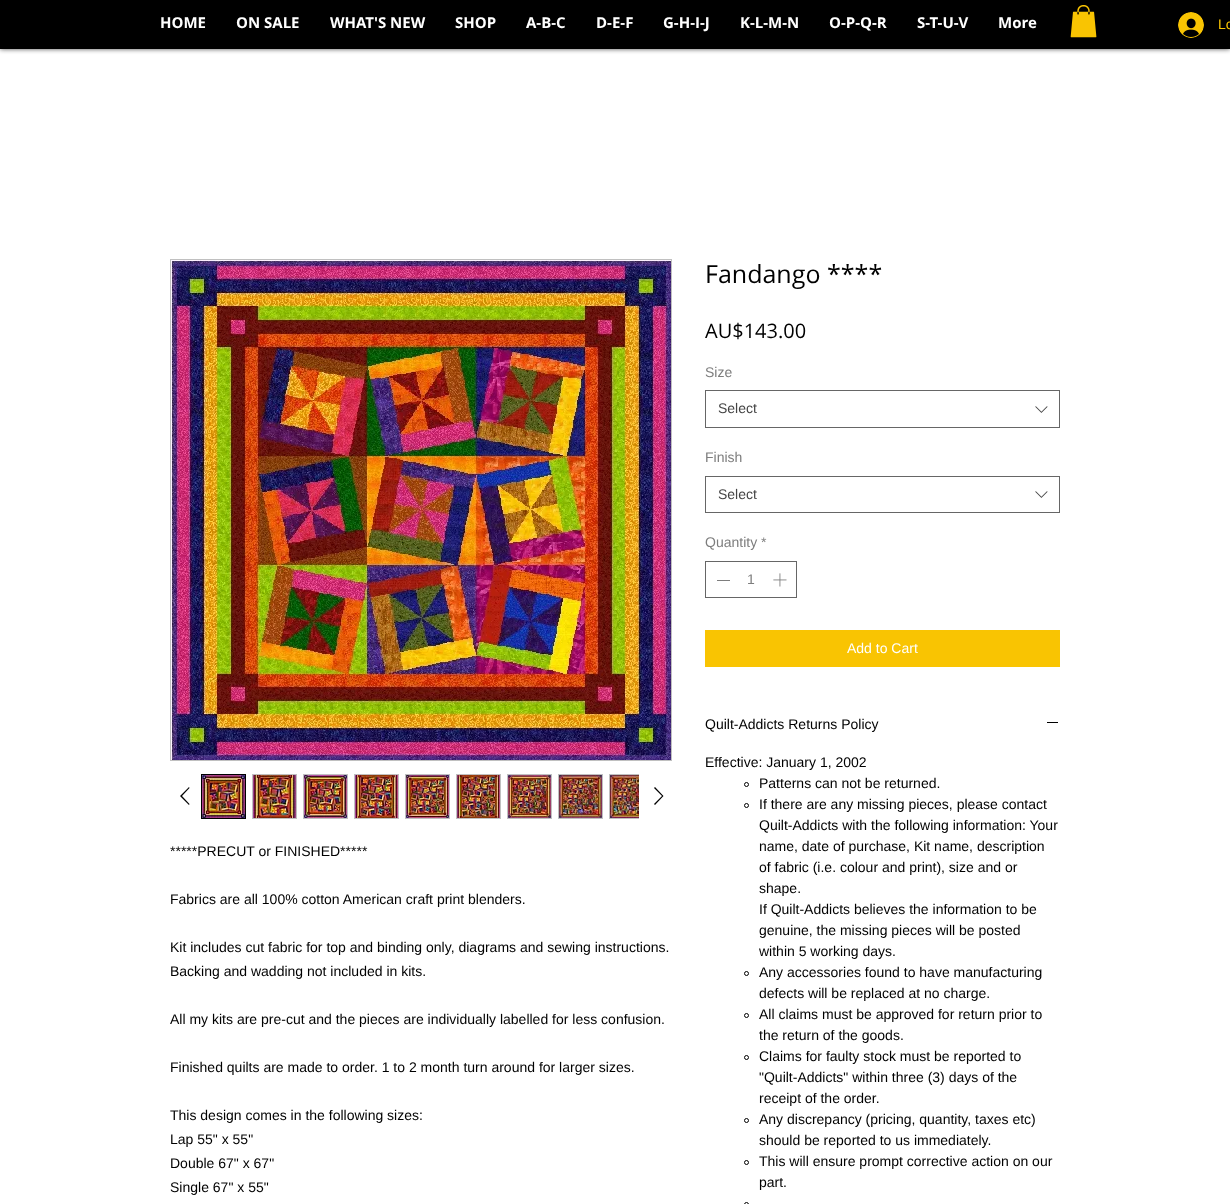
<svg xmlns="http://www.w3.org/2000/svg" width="1230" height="1204">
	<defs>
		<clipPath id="clip1"><rect x="197" y="770" width="442" height="53" /></clipPath>
	</defs>
	<rect width="100%" height="100%" fill="#FFFFFF" />
	<rect x="0" y="0" width="1230" height="49" fill="#000000" fill-opacity="0.7" filter="blur(2.5px)" />
	<rect x="0" y="0" width="1230" height="49" fill="#000000" />
	<g font-family="Open Sans" font-size="15" font-weight="700" fill="#FFFFFF">
		<text x="160" y="28">HOME</text>
		<text x="236" y="28">ON SALE</text>
		<text x="330" y="28">WHAT'S NEW</text>
		<text x="455" y="28">SHOP</text>
		<text x="526" y="28">A-B-C</text>
		<text x="596" y="28">D-E-F</text>
		<text x="663" y="28">G-H-I-J</text>
		<text x="740" y="28">K-L-M-N</text>
		<text x="829" y="28">O-P-Q-R</text>
		<text x="917" y="28">S-T-U-V</text>
		<text x="998" y="28">More</text>
	</g>
	<image x="1070" y="5" width="27" height="33" href="assets/img1.png" />
	<image x="1178" y="12" width="26" height="26" href="assets/img2.png" />
	<text x="1218" y="29" font-family="Liberation Sans" font-size="14" fill="#F9C402">Lo</text>
	<rect x="170.5" y="259.5" width="501" height="501" fill="none" stroke="#C0C0C0" />
	<image x="171" y="260" width="500" height="500" href="assets/img3.png" />
	<path d="M189 787L189.5 788L182 796L189.5 804L189 805L180 796Z" fill="#000000" fill-rule="evenodd" />
	<rect x="201.5" y="774.5" width="44" height="44" fill="none" stroke="#000000" />
	<image x="202" y="775" width="43" height="43" href="assets/img4.png" />
	<rect x="252.5" y="774.5" width="44" height="44" fill="none" stroke="#C0C0C0" />
	<image x="253" y="775" width="43" height="43" href="assets/img5.png" />
	<rect x="303.5" y="774.5" width="44" height="44" fill="none" stroke="#C0C0C0" />
	<image x="304" y="775" width="43" height="43" href="assets/img6.png" />
	<rect x="354.5" y="774.5" width="44" height="44" fill="none" stroke="#C0C0C0" />
	<image x="355" y="775" width="43" height="43" href="assets/img7.png" />
	<rect x="405.5" y="774.5" width="44" height="44" fill="none" stroke="#C0C0C0" />
	<image x="406" y="775" width="43" height="43" href="assets/img8.png" />
	<rect x="456.5" y="774.5" width="44" height="44" fill="none" stroke="#C0C0C0" />
	<image x="457" y="775" width="43" height="43" href="assets/img9.png" />
	<rect x="507.5" y="774.5" width="44" height="44" fill="none" stroke="#C0C0C0" />
	<image x="508" y="775" width="43" height="43" href="assets/img10.png" />
	<rect x="558.5" y="774.5" width="44" height="44" fill="none" stroke="#C0C0C0" />
	<image x="559" y="775" width="43" height="43" href="assets/img11.png" />
	<g clip-path="url(#clip1)">
		<rect x="609.5" y="774.5" width="44" height="44" fill="none" stroke="#C0C0C0" />
	</g>
	<image x="610" y="775" width="29" height="43" href="assets/img12.png" />
	<path d="M655 787L663.5 796L655 805L654 804L662 796L654 788Z" fill="#000000" fill-rule="evenodd" />
	<g font-family="Liberation Sans" font-size="14" fill="#000000">
		<text x="170" y="856">*****PRECUT or FINISHED*****</text>
		<text x="170" y="904">Fabrics are all 100% cotton American craft print blenders.</text>
		<text x="170" y="952">Kit includes cut fabric for top and binding only, diagrams and sewing instructions.</text>
		<text x="170" y="976">Backing and wadding not included in kits.</text>
		<text x="170" y="1024">All my kits are pre-cut and the pieces are individually labelled for less confusion.</text>
		<text x="170" y="1072">Finished quilts are made to order. 1 to 2 month turn around for larger sizes.</text>
		<text x="170" y="1120">This design comes in the following sizes:</text>
		<text x="170" y="1144">Lap 55" x 55"</text>
		<text x="170" y="1168">Double 67" x 67"</text>
		<text x="170" y="1192">Single 67" x 55"</text>
	</g>
	<text x="705" y="283" font-family="Open Sans" font-size="25" fill="#000000">Fandango ****</text>
	<text x="705" y="338" font-family="Open Sans" font-size="20" fill="#000000">AU$143.00</text>
	<text x="705" y="377" font-family="Liberation Sans" font-size="14" fill="#7D7D7D">Size</text>
	<rect x="705.5" y="390.5" width="354" height="37" fill="none" stroke="#666666" />
	<text x="718" y="413" font-family="Liberation Sans" font-size="14" fill="#444444">Select</text>
	<image x="1035" y="406" width="13" height="7" href="assets/img13.png" />
	<text x="705" y="462" font-family="Liberation Sans" font-size="14" fill="#7D7D7D">Finish</text>
	<rect x="705.5" y="476.5" width="354" height="36" fill="none" stroke="#666666" />
	<text x="718" y="499" font-family="Liberation Sans" font-size="14" fill="#444444">Select</text>
	<image x="1035" y="491" width="13" height="7" href="assets/img13.png" />
	<text x="705" y="547" font-family="Liberation Sans" font-size="14" fill="#7D7D7D">Quantity *</text>
	<rect x="705.5" y="561.5" width="91" height="36" fill="none" stroke="#666666" />
	<rect x="717" y="580" width="13" height="1" fill="#7D7D7D" />
	<text x="747" y="584" font-family="Liberation Sans" font-size="14" fill="#7D7D7D">1</text>
	<image x="773" y="573" width="14" height="14" href="assets/img14.png" />
	<rect x="705" y="630" width="355" height="37" fill="#F9C402" />
	<text x="847" y="653" font-family="Liberation Sans" font-size="14" fill="#FFFFFF">Add to Cart</text>
	<text x="705" y="729" font-family="Liberation Sans" font-size="14" fill="#000000">Quilt-Addicts Returns Policy</text>
	<rect x="1047" y="722" width="11" height="1" fill="#000000" />
	<text x="705" y="767" font-family="Liberation Sans" font-size="14" fill="#000000">Effective: January 1, 2002</text>
	<circle cx="746.5" cy="784.5" r="2" fill="none" stroke="#000000" />
	<text x="759" y="788" font-family="Liberation Sans" font-size="14" fill="#000000">Patterns can not be returned.</text>
	<circle cx="746.5" cy="805.5" r="2" fill="none" stroke="#000000" />
	<g font-family="Liberation Sans" font-size="14" fill="#000000">
		<text x="759" y="809">If there are any missing pieces, please contact</text>
		<text x="759" y="830">Quilt-Addicts with the following information: Your</text>
		<text x="759" y="851">name, date of purchase, Kit name, description</text>
		<text x="759" y="872">of fabric (i.e. colour and print), size and or</text>
		<text x="759" y="893">shape.</text>
		<text x="759" y="914">If Quilt-Addicts believes the information to be</text>
		<text x="759" y="935">genuine, the missing pieces will be posted</text>
		<text x="759" y="956">within 5 working days.</text>
	</g>
	<circle cx="746.5" cy="973.5" r="2" fill="none" stroke="#000000" />
	<g font-family="Liberation Sans" font-size="14" fill="#000000">
		<text x="759" y="977">Any accessories found to have manufacturing</text>
		<text x="759" y="998">defects will be replaced at no charge.</text>
	</g>
	<circle cx="746.5" cy="1015.5" r="2" fill="none" stroke="#000000" />
	<g font-family="Liberation Sans" font-size="14" fill="#000000">
		<text x="759" y="1019">All claims must be approved for return prior to</text>
		<text x="759" y="1040">the return of the goods.</text>
	</g>
	<circle cx="746.5" cy="1057.5" r="2" fill="none" stroke="#000000" />
	<g font-family="Liberation Sans" font-size="14" fill="#000000">
		<text x="759" y="1061">Claims for faulty stock must be reported to</text>
		<text x="759" y="1082">"Quilt-Addicts" within three (3) days of the</text>
		<text x="759" y="1103">receipt of the order.</text>
	</g>
	<circle cx="746.5" cy="1120.5" r="2" fill="none" stroke="#000000" />
	<g font-family="Liberation Sans" font-size="14" fill="#000000">
		<text x="759" y="1124">Any discrepancy (pricing, quantity, taxes etc)</text>
		<text x="759" y="1145">should be reported to us immediately.</text>
	</g>
	<circle cx="746.5" cy="1162.5" r="2" fill="none" stroke="#000000" />
	<g font-family="Liberation Sans" font-size="14" fill="#000000">
		<text x="759" y="1166">This will ensure prompt corrective action on our</text>
		<text x="759" y="1187">part.</text>
	</g>
	<circle cx="746.5" cy="1204.5" r="2" fill="none" stroke="#000000" />
</svg>
